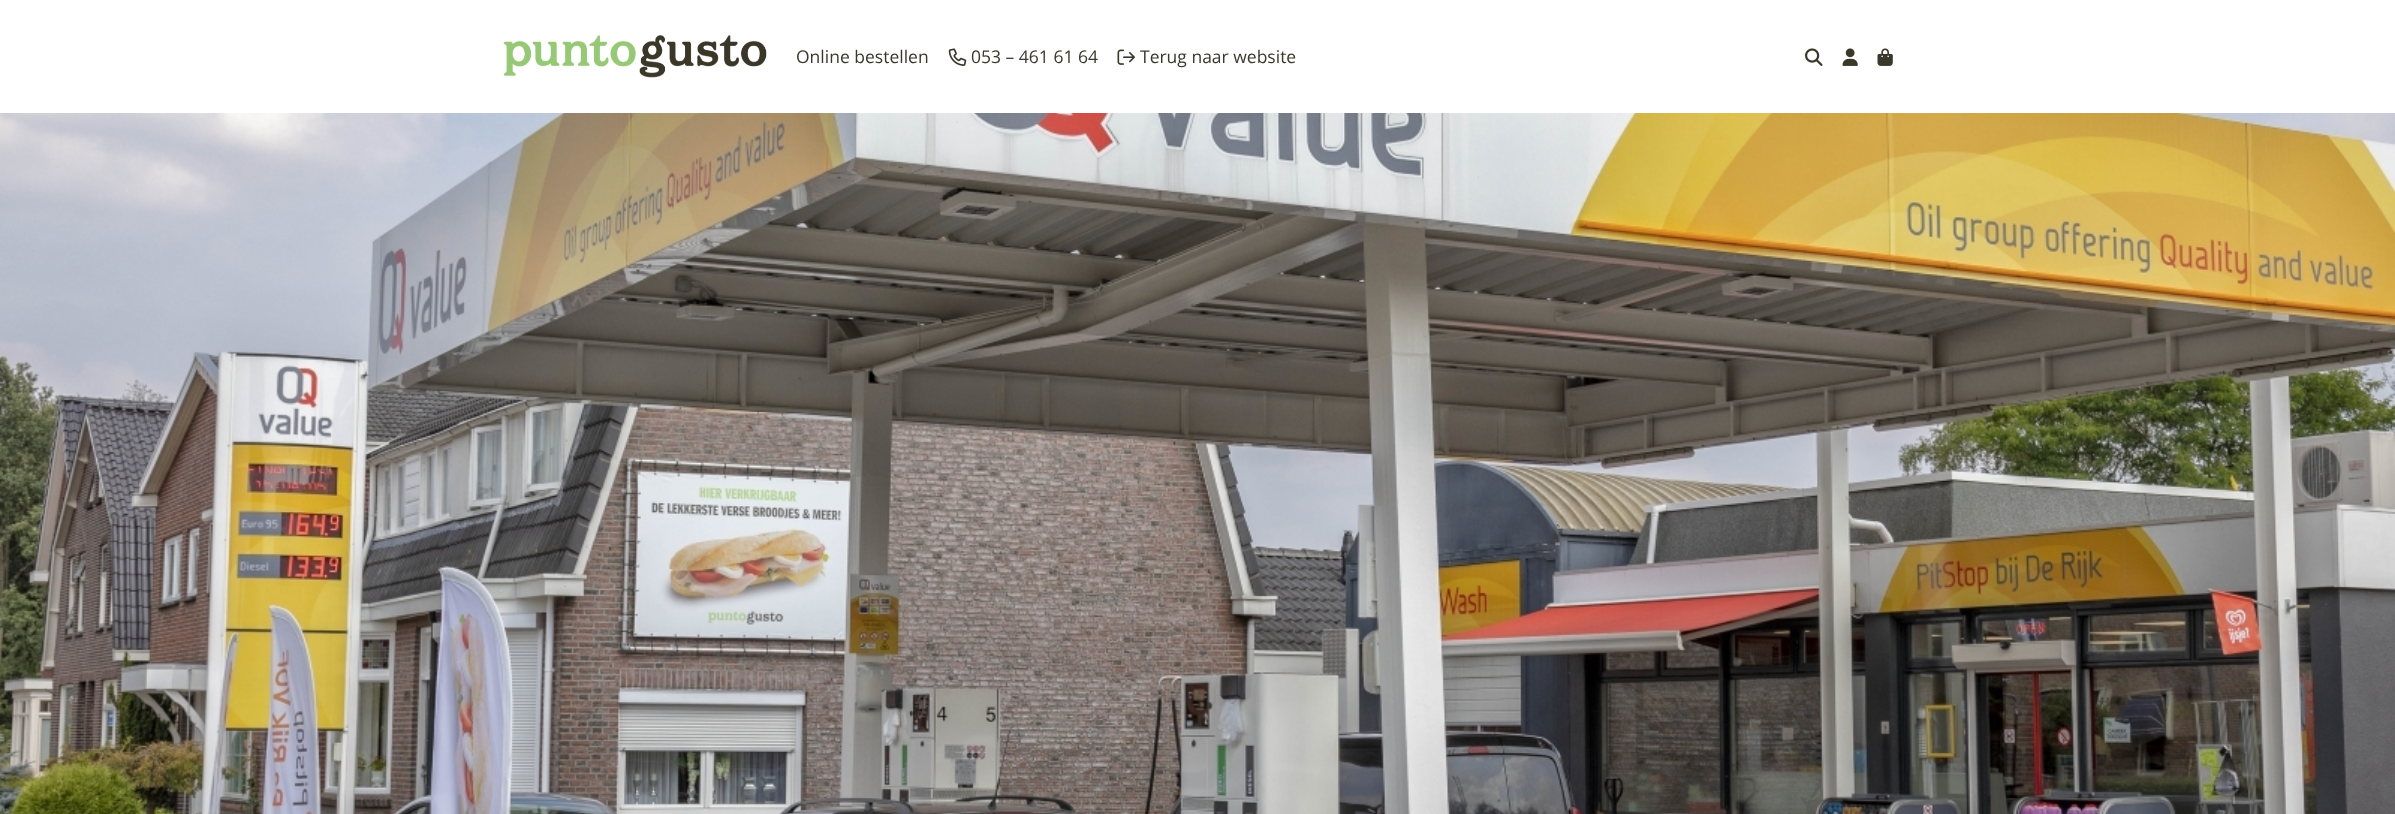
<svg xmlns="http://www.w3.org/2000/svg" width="2395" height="814">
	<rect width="100%" height="100%" fill="#FFFFFF" />
	<image x="503" y="34" width="264" height="44" href="assets/img1.png" />
	<text x="796" y="63" font-family="Open Sans" font-size="17.5" fill="#3A372B">Online bestellen</text>
	<image x="948" y="48" width="19" height="18" href="assets/img2.png" />
	<text x="971" y="63" font-family="Open Sans" font-size="17.5" fill="#3A372B">053 – 461 61 64</text>
	<image x="1117" y="49" width="18" height="16" href="assets/img3.png" />
	<text x="1140" y="63" font-family="Open Sans" font-size="17.5" fill="#3A372B">Terug naar website</text>
	<image x="1805" y="48" width="18" height="18" href="assets/img4.png" />
	<image x="1842" y="48" width="16" height="18" href="assets/img5.png" />
	<image x="1877" y="48" width="16" height="18" href="assets/img6.png" />
	<image x="0" y="113" width="2395" height="701" href="assets/img7.png" />
</svg>
